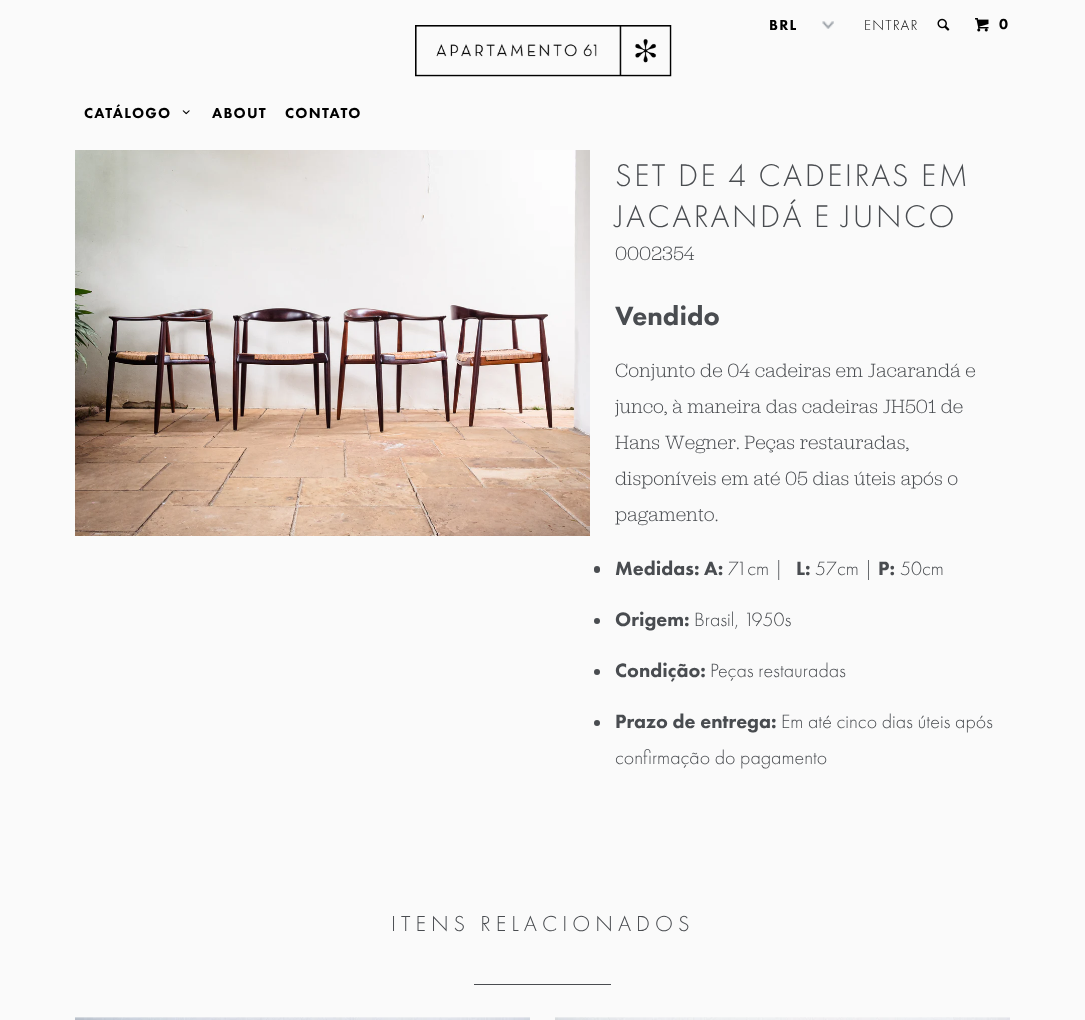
<svg xmlns="http://www.w3.org/2000/svg" width="1085" height="1020">
	<rect width="100%" height="100%" fill="#FAFAFA" />
	<image x="822" y="21" width="12" height="8" href="assets/img1.png" />
	<text x="769" y="30" font-family="Futura PT" font-size="15" font-weight="900" letter-spacing="1.25" fill="#000000">BRL</text>
	<text x="864" y="30" font-family="Futura PT" font-size="15" font-weight="300" letter-spacing="1.25" fill="#000000">ENTRAR</text>
	<image x="937" y="18" width="13" height="13" href="assets/img2.png" />
	<image x="975" y="18" width="14" height="14" href="assets/img3.png" />
	<g font-family="Futura PT" font-size="15" font-weight="900" letter-spacing="1.25" fill="#000000">
		<text x="999" y="29">0</text>
		<text x="84" y="118">CATÁLOGO</text>
	</g>
	<image x="182" y="110" width="8" height="5" href="assets/img4.png" />
	<g font-family="Futura PT" font-size="15" font-weight="900" letter-spacing="1.25" fill="#000000">
		<text x="212" y="118">ABOUT</text>
		<text x="285" y="118">CONTATO</text>
	</g>
	<image x="415" y="25" width="257" height="52" href="assets/img5.png" />
	<image x="75" y="150" width="515" height="386" href="assets/img6.png" />
	<g font-family="Futura PT" font-size="32.5" font-weight="300" letter-spacing="2.5" fill="#494C50">
		<text x="615" y="186">SET DE 4 CADEIRAS EM</text>
		<text x="615" y="227">JACARANDÁ E JUNCO</text>
	</g>
	<text x="615" y="260" font-family="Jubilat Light" font-size="20" font-weight="300" fill="#494C50">0002354</text>
	<text x="615" y="325" font-family="Futura PT" font-size="27.5" font-weight="900" fill="#494C50">Vendido</text>
	<g font-family="Jubilat Light" font-size="20" font-weight="300" fill="#494C50">
		<text x="615" y="377">Conjunto de 04 cadeiras em Jacarandá e</text>
		<text x="615" y="413">junco, à maneira das cadeiras JH501 de</text>
		<text x="615" y="449">Hans Wegner. Peças restauradas,</text>
		<text x="615" y="485">disponíveis em até 05 dias úteis após o</text>
		<text x="615" y="521">pagamento.</text>
	</g>
	<rect x="594" y="566" width="6" height="7" rx="3" fill="#494C50" />
	<text x="615" y="575" font-family="Futura PT" font-size="20" font-weight="900" fill="#494C50">Medidas: A:</text>
	<text x="728" y="575" font-family="Futura PT" font-size="20" font-weight="300" fill="#494C50">71cm |</text>
	<text x="796" y="575" font-family="Futura PT" font-size="20" font-weight="900" fill="#494C50">L:</text>
	<text x="815" y="575" font-family="Futura PT" font-size="20" font-weight="300" fill="#494C50">57cm |</text>
	<text x="878" y="575" font-family="Futura PT" font-size="20" font-weight="900" fill="#494C50">P:</text>
	<text x="900" y="575" font-family="Futura PT" font-size="20" font-weight="300" fill="#494C50">50cm</text>
	<circle cx="597" cy="621" r="3" fill="#494C50" />
	<text x="615" y="626" font-family="Futura PT" font-size="20" font-weight="900" fill="#494C50">Origem:</text>
	<text x="694" y="626" font-family="Futura PT" font-size="20" font-weight="300" fill="#494C50">Brasil, 1950s</text>
	<circle cx="597" cy="672" r="3" fill="#494C50" />
	<text x="615" y="677" font-family="Futura PT" font-size="20" font-weight="900" fill="#494C50">Condição:</text>
	<text x="710" y="677" font-family="Futura PT" font-size="20" font-weight="300" fill="#494C50">Peças restauradas</text>
	<circle cx="597" cy="723" r="3" fill="#494C50" />
	<text x="615" y="728" font-family="Futura PT" font-size="20" font-weight="900" fill="#494C50">Prazo de entrega:</text>
	<g font-family="Futura PT" font-size="20" font-weight="300" fill="#494C50">
		<text x="781" y="728">Em até cinco dias úteis após</text>
		<text x="615" y="764">confirmação do pagamento</text>
	</g>
	<text x="391" y="931" font-family="Futura PT" font-size="22.5" font-weight="300" letter-spacing="5" fill="#494C50">ITENS RELACIONADOS</text>
	<rect x="474" y="984" width="137" height="1" fill="#494C50" />
	<image x="75" y="1017" width="455" height="3" href="assets/img7.png" />
	<image x="555" y="1017" width="455" height="3" href="assets/img8.png" />
</svg>
